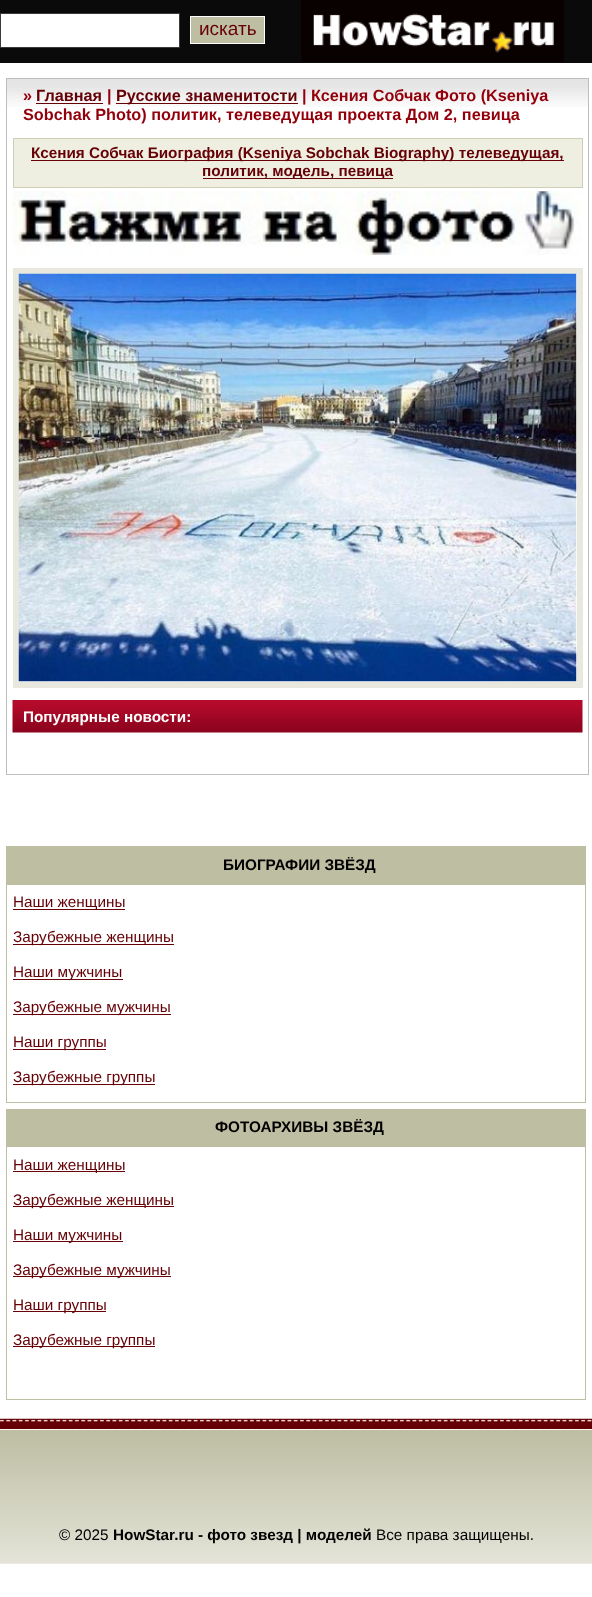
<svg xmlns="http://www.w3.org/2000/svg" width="592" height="1597">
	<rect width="100%" height="100%" fill="#FFFFFF" />
	<rect x="0" y="0" width="592" height="63" fill="#0A0A0A" />
	<rect x="0.5" y="13.5" width="179" height="34" fill="#FFFFFF" stroke="#3A3A3A" />
	<rect x="190.5" y="16.5" width="74" height="27" fill="#BEBEA3" stroke="#FFFFFF" />
	<text x="199" y="35" font-family="Liberation Sans" font-size="19" fill="#650106">искать</text>
	<image x="301" y="0" width="263" height="62" href="assets/img1.png" />
	<image x="7" y="79" width="581" height="28" href="assets/img2.png" />
	<rect x="6" y="78" width="583" height="1" fill="#BEBEBE" />
	<rect x="588" y="78" width="1" height="697" fill="#BEBEBE" />
	<rect x="6" y="78" width="1" height="53" fill="#BEBEBE" />
	<text x="23" y="101" font-family="Liberation Sans" font-size="16.25" font-weight="700" fill="#93000B">»</text>
	<text x="36" y="101" font-family="Liberation Sans" font-size="16.25" font-weight="700" fill="#650106">Главная</text>
	<rect x="36" y="103" width="67" height="1" fill="#680008" />
	<text x="107" y="101" font-family="Liberation Sans" font-size="16.25" font-weight="700" fill="#93000B">|</text>
	<rect x="116" y="103" width="182" height="1" fill="#680008" />
	<text x="116" y="101" font-family="Liberation Sans" font-size="16.25" font-weight="700" fill="#650106">Русские знаменитости</text>
	<g font-family="Liberation Sans" font-size="16.25" font-weight="700" fill="#93000B">
		<text x="302" y="101">| Ксения Собчак Фото (Kseniya</text>
		<text x="23" y="120">Sobchak Photo) политик, телеведущая проекта Дом 2, певица</text>
	</g>
	<rect x="6" y="774" width="583" height="1" fill="#BEBEBE" />
	<rect x="6" y="131" width="1" height="644" fill="#BEBEBE" />
	<rect x="13.5" y="138.5" width="569" height="49" fill="#EEEEE1" stroke="#CECFB6" />
	<rect x="31" y="160" width="533" height="1" fill="#680008" />
	<text x="31" y="158" font-family="Liberation Sans" font-size="15.3" font-weight="700" fill="#650106">Ксения Собчак Биография (Kseniya Sobchak Biography) телеведущая,</text>
	<rect x="203" y="178" width="190" height="1" fill="#680008" />
	<text x="202" y="176" font-family="Liberation Sans" font-size="15.3" font-weight="700" fill="#650106">политик, модель, певица</text>
	<image x="12" y="191" width="570" height="64" href="assets/img3.png" />
	<rect x="16" y="271" width="564" height="414" fill="none" stroke="#E8E8DE" stroke-width="6" />
	<image x="18" y="273" width="559" height="409" href="assets/img4.png" />
	<image x="12" y="700" width="571" height="33" href="assets/img5.png" />
	<text x="23" y="722" font-family="Liberation Sans" font-size="15.3" font-weight="700" fill="#FFFFFF">Популярные новости:</text>
	<rect x="6" y="846" width="580" height="38" fill="#BEBEA3" />
	<text x="223" y="870" font-family="Liberation Sans" font-size="15.3" font-weight="700" fill="#000000">БИОГРАФИИ ЗВЁЗД</text>
	<rect x="6.5" y="884.5" width="579" height="218" fill="none" stroke="#BEBEA3" />
	<rect x="13" y="909" width="112" height="1" fill="#680008" />
	<text x="13" y="907" font-family="Liberation Sans" font-size="15.3" fill="#650106">Наши женщины</text>
	<rect x="13" y="944" width="161" height="1" fill="#680008" />
	<text x="13" y="942" font-family="Liberation Sans" font-size="15.3" fill="#650106">Зарубежные женщины</text>
	<rect x="13" y="979" width="110" height="1" fill="#680008" />
	<text x="13" y="977" font-family="Liberation Sans" font-size="15.3" fill="#650106">Наши мужчины</text>
	<rect x="13" y="1014" width="158" height="1" fill="#680008" />
	<text x="13" y="1012" font-family="Liberation Sans" font-size="15.3" fill="#650106">Зарубежные мужчины</text>
	<rect x="13" y="1049" width="93" height="1" fill="#680008" />
	<text x="13" y="1047" font-family="Liberation Sans" font-size="15.3" fill="#650106">Наши группы</text>
	<rect x="13" y="1084" width="142" height="1" fill="#680008" />
	<text x="13" y="1082" font-family="Liberation Sans" font-size="15.3" fill="#650106">Зарубежные группы</text>
	<rect x="6" y="1109" width="580" height="37" fill="#BEBEA3" />
	<text x="215" y="1132" font-family="Liberation Sans" font-size="15.3" font-weight="700" fill="#000000">ФОТОАРХИВЫ ЗВЁЗД</text>
	<rect x="6.5" y="1146.5" width="579" height="253" fill="none" stroke="#BEBEA3" />
	<rect x="13" y="1171" width="112" height="1" fill="#680008" />
	<text x="13" y="1170" font-family="Liberation Sans" font-size="15.3" fill="#650106">Наши женщины</text>
	<rect x="13" y="1206" width="161" height="1" fill="#680008" />
	<text x="13" y="1205" font-family="Liberation Sans" font-size="15.3" fill="#650106">Зарубежные женщины</text>
	<rect x="13" y="1241" width="110" height="1" fill="#680008" />
	<text x="13" y="1240" font-family="Liberation Sans" font-size="15.3" fill="#650106">Наши мужчины</text>
	<rect x="13" y="1276" width="158" height="1" fill="#680008" />
	<text x="13" y="1275" font-family="Liberation Sans" font-size="15.3" fill="#650106">Зарубежные мужчины</text>
	<rect x="13" y="1311" width="93" height="1" fill="#680008" />
	<text x="13" y="1310" font-family="Liberation Sans" font-size="15.3" fill="#650106">Наши группы</text>
	<rect x="13" y="1346" width="142" height="1" fill="#680008" />
	<text x="13" y="1345" font-family="Liberation Sans" font-size="15.3" fill="#650106">Зарубежные группы</text>
	<image x="0" y="1418" width="592" height="11" href="assets/img6.png" />
	<rect x="0" y="1429" width="592" height="1" fill="#FCF8EF" />
	<image x="0" y="1430" width="592" height="134" href="assets/img7.png" />
	<text x="59" y="1540" font-family="Liberation Sans" font-size="15.3" fill="#000000">© 2025</text>
	<text x="113" y="1540" font-family="Liberation Sans" font-size="15.3" font-weight="700" fill="#000000">HowStar.ru - фото звезд | моделей</text>
	<text x="376" y="1540" font-family="Liberation Sans" font-size="15.3" fill="#000000">Все права защищены.</text>
</svg>
